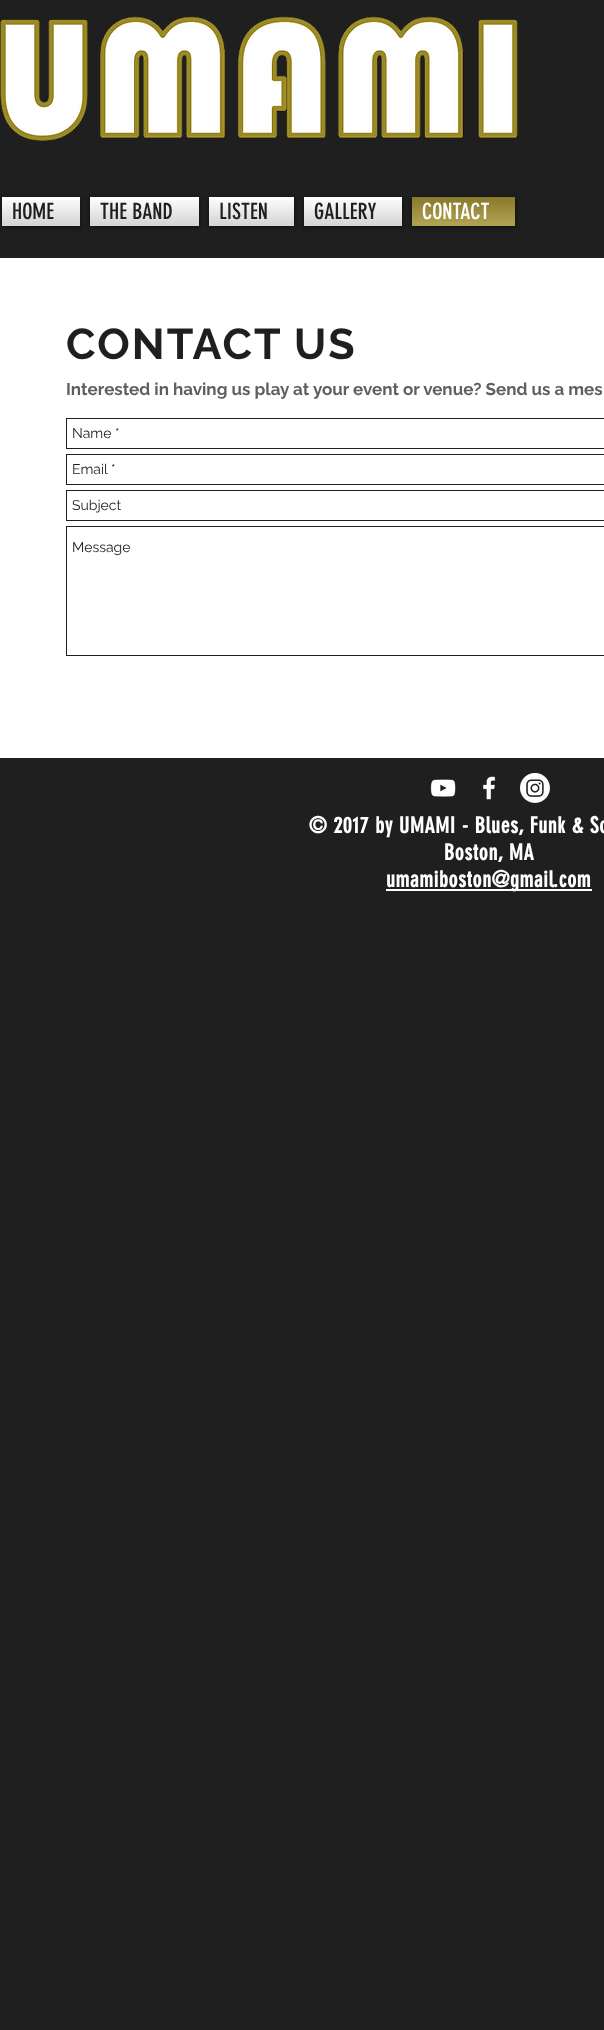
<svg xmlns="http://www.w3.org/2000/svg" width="604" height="2030">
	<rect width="100%" height="100%" fill="#1F1F1F" />
	<image x="0" y="15" width="518" height="126" href="assets/img1.png" />
	<rect x="2" y="198" width="78" height="29" fill="#000000" fill-opacity="0.6" filter="blur(2px)" />
	<rect x="2" y="197" width="78" height="29" fill="#FFFFFF" />
	<image x="2" y="200" width="78" height="26" href="assets/img2.png" />
	<text x="12" y="219" font-family="'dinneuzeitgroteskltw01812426'" font-size="22" fill="#1F1F1F">HOME</text>
	<rect x="90" y="198" width="109" height="29" fill="#000000" fill-opacity="0.6" filter="blur(2px)" />
	<rect x="90" y="197" width="109" height="29" fill="#FFFFFF" />
	<image x="90" y="200" width="109" height="26" href="assets/img3.png" />
	<text x="100" y="219" font-family="'dinneuzeitgroteskltw01812426'" font-size="22" fill="#1F1F1F">THE BAND</text>
	<rect x="209" y="198" width="85" height="29" fill="#000000" fill-opacity="0.6" filter="blur(2px)" />
	<rect x="209" y="197" width="85" height="29" fill="#FFFFFF" />
	<image x="209" y="200" width="85" height="26" href="assets/img4.png" />
	<text x="219" y="219" font-family="'dinneuzeitgroteskltw01812426'" font-size="22" fill="#1F1F1F">LISTEN</text>
	<rect x="304" y="198" width="98" height="29" fill="#000000" fill-opacity="0.6" filter="blur(2px)" />
	<rect x="304" y="197" width="98" height="29" fill="#FFFFFF" />
	<image x="304" y="200" width="98" height="26" href="assets/img5.png" />
	<text x="314" y="219" font-family="'dinneuzeitgroteskltw01812426'" font-size="22" fill="#1F1F1F">GALLERY</text>
	<rect x="412" y="198" width="103" height="29" fill="#000000" fill-opacity="0.6" filter="blur(2px)" />
	<rect x="412" y="197" width="103" height="29" fill="#9E8C28" />
	<image x="412" y="197" width="103" height="25" href="assets/img6.png" />
	<image x="412" y="197" width="103" height="29" href="assets/img7.png" />
	<text x="422" y="219" font-family="'dinneuzeitgroteskltw01812426'" font-size="22" fill="#FFFFFF">CONTACT</text>
	<rect x="0" y="258" width="604" height="500" fill="#FFFFFF" />
	<text x="66" y="359" font-family="Raleway" font-size="43" font-weight="700" letter-spacing="2.1" fill="#1F1F1F">CONTACT US</text>
	<text x="66" y="395" font-family="Raleway" font-size="17" font-weight="700" fill="#605E5E">Interested in having us play at your event or venue? Send us a mes</text>
	<rect x="66.5" y="418.5" width="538" height="30" fill="none" stroke="#1F1F1F" />
	<text x="72" y="438" font-family="Raleway" font-size="14" fill="#1F1F1F">Name *</text>
	<rect x="66.5" y="454.5" width="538" height="30" fill="none" stroke="#1F1F1F" />
	<text x="72" y="474" font-family="Raleway" font-size="14" fill="#1F1F1F">Email *</text>
	<rect x="66.5" y="490.5" width="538" height="30" fill="none" stroke="#1F1F1F" />
	<text x="72" y="510" font-family="Raleway" font-size="14" fill="#1F1F1F">Subject</text>
	<rect x="66.5" y="526.5" width="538" height="129" fill="none" stroke="#1F1F1F" />
	<text x="72" y="552" font-family="Raleway" font-size="14" fill="#1F1F1F">Message</text>
	<image x="430" y="779" width="26" height="18" href="assets/img8.png" />
	<image x="483" y="776" width="13" height="24" href="assets/img9.png" />
	<image x="520" y="773" width="30" height="30" href="assets/img10.png" />
	<g font-family="'dinneuzeitgroteskltw01812426'" font-size="22" font-weight="700" letter-spacing="0.65" fill="#FFFFFF">
		<text x="309" y="833">© 2017 by UMAMI - Blues, Funk &amp; So</text>
		<text x="444" y="860">Boston, MA</text>
	</g>
	<rect x="386" y="889" width="206" height="2" fill="#FFFFFF" />
	<text x="386" y="887" font-family="'dinneuzeitgroteskltw01812426'" font-size="22" font-weight="700" letter-spacing="0.65" fill="#FFFFFF">umamiboston@gmail.com</text>
</svg>
